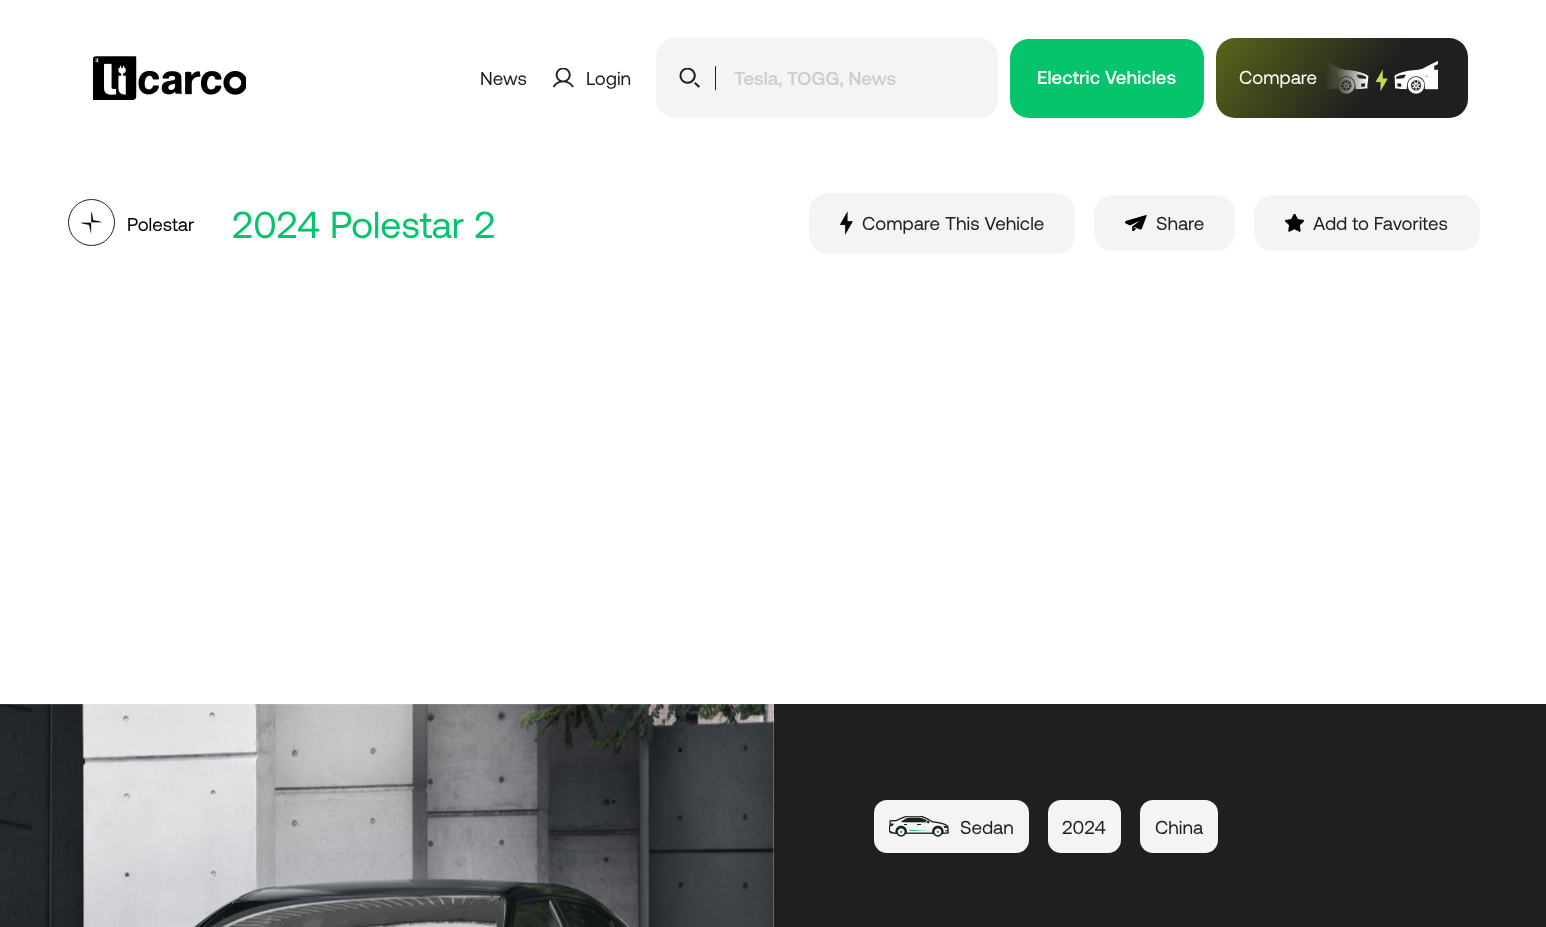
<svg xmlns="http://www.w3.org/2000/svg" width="1546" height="927">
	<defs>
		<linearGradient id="g1" gradientUnits="userSpaceOnUse" x1="1244" y1="1.4" x2="1439" y2="154"><stop offset="0" stop-color="#596719" /><stop offset="0.63" stop-color="#1F1F1F" /></linearGradient>
	</defs>
	<rect width="100%" height="100%" fill="#FFFFFF" />
	<image x="93" y="56" width="153" height="44" href="assets/img1.png" />
	<text x="480" y="85" font-family="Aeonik" font-size="18.75" fill="#1F1F1F">News</text>
	<image x="553" y="68" width="21" height="20" href="assets/img2.png" />
	<text x="586" y="85" font-family="Aeonik" font-size="18.75" fill="#1F1F1F">Login</text>
	<rect x="656" y="38" width="342" height="80" rx="19" fill="#F4F4F4" />
	<image x="679" y="68" width="21" height="20" href="assets/img3.png" />
	<rect x="715" y="66" width="1" height="24" fill="#1F1F1F" />
	<text x="734" y="85" font-family="Aeonik" font-size="18.75" font-weight="500" fill="#CCCCCC">Tesla, TOGG, News</text>
	<rect x="1010" y="39" width="194" height="79" rx="19" fill="#05C46C" />
	<text x="1037" y="84" font-family="Aeonik" font-size="18.75" font-weight="500" fill="#FFFFFF">Electric Vehicles</text>
	<rect x="1216" y="38" width="252" height="80" rx="19" fill="url(#g1)" />
	<text x="1239" y="84" font-family="Aeonik" font-size="18.75" fill="#FFFFFF">Compare</text>
	<image x="1326" y="61" width="112" height="33" href="assets/img4.png" />
	<circle cx="91.5" cy="222.5" r="23" fill="none" stroke="#1F1F1F" />
	<image x="80" y="211" width="22" height="23" href="assets/img5.png" />
	<text x="127" y="231" font-family="Aeonik" font-size="18.75" fill="#000000">Polestar</text>
	<text x="232" y="238" font-family="Aeonik" font-size="37.5" fill="#05C46C">2024 Polestar 2</text>
	<rect x="809" y="193" width="266" height="61" rx="19" fill="#F4F4F4" />
	<image x="840" y="211" width="13" height="24" href="assets/img6.png" />
	<text x="862" y="230" font-family="Aeonik" font-size="18.75" fill="#1F1F1F">Compare This Vehicle</text>
	<rect x="1094" y="195" width="141" height="56" rx="19" fill="#F4F4F4" />
	<image x="1125" y="215" width="22" height="16" href="assets/img7.png" />
	<text x="1156" y="230" font-family="Aeonik" font-size="18.75" fill="#1F1F1F">Share</text>
	<rect x="1254" y="195" width="226" height="56" rx="19" fill="#F4F4F4" />
	<image x="1285" y="214" width="19" height="18" href="assets/img8.png" />
	<text x="1313" y="230" font-family="Aeonik" font-size="18.75" fill="#1F1F1F">Add to Favorites</text>
	<image x="0" y="704" width="774" height="223" href="assets/img9.png" />
	<rect x="774" y="704" width="772" height="223" fill="#1F1F1F" />
	<rect x="874" y="800" width="155" height="53" rx="13" fill="#F4F4F4" />
	<image x="889" y="816" width="60" height="21" href="assets/img10.png" />
	<text x="960" y="834" font-family="Aeonik" font-size="18.75" fill="#1F1F1F">Sedan</text>
	<rect x="1048" y="800" width="73" height="53" rx="13" fill="#F4F4F4" />
	<text x="1062" y="834" font-family="Aeonik" font-size="18.75" fill="#1F1F1F">2024</text>
	<rect x="1140" y="800" width="78" height="53" rx="13" fill="#F4F4F4" />
	<text x="1155" y="834" font-family="Aeonik" font-size="18.75" fill="#1F1F1F">China</text>
</svg>
